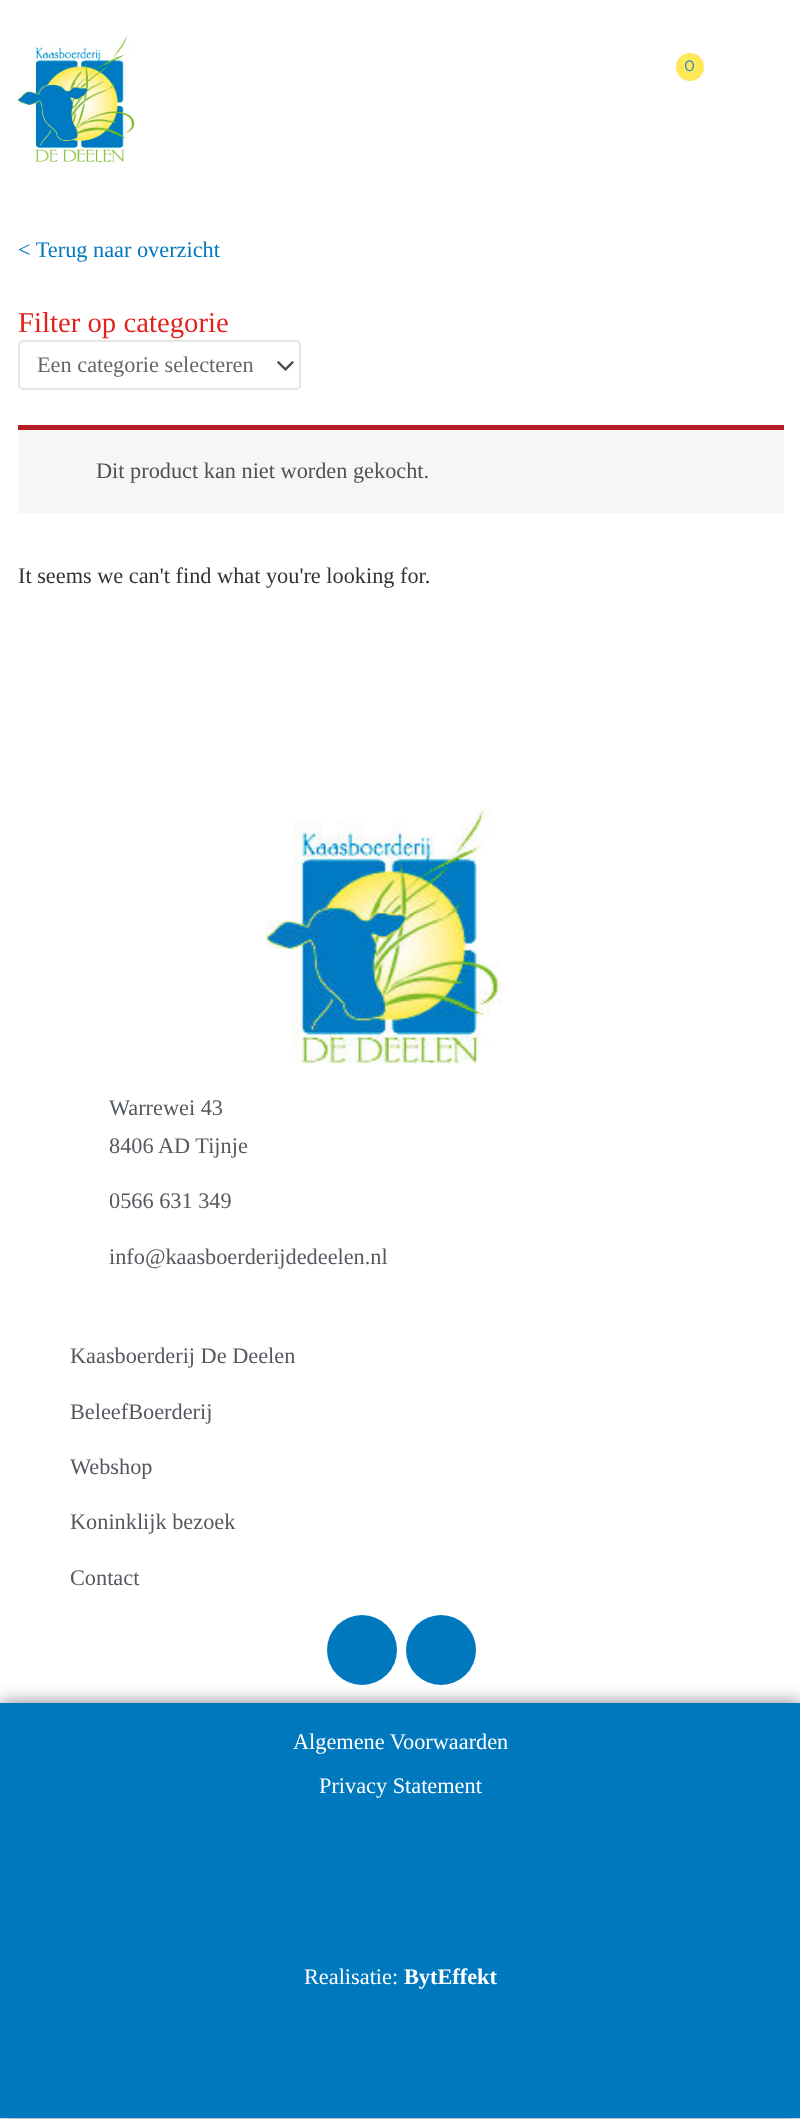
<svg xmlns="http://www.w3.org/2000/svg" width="800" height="2119">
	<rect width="100%" height="100%" fill="#FFFFFF" />
	<image x="17" y="35" width="118" height="128" href="assets/img1.png" />
	<circle cx="690" cy="67" r="14" fill="#FEE857" />
	<text x="684" y="71" font-family="Raleway" font-size="18" fill="#2B84C3">0</text>
	<text x="18" y="257" font-family="Liberation Serif" font-size="22.3" fill="#0078BE">&lt; Terug naar overzicht</text>
	<text x="18" y="332" font-family="Liberation Serif" font-size="28.75" fill="#E2211E">Filter op categorie</text>
	<image x="277" y="361" width="17" height="10" href="assets/img2.png" />
	<rect x="19" y="341" width="281" height="48" rx="4" fill="none" stroke="#E5E5E5" stroke-width="2" />
	<text x="37" y="372" font-family="Liberation Serif" font-size="22.3" fill="#666666">Een categorie selecteren</text>
	<rect x="18" y="430" width="766" height="83" fill="#F7F6F7" />
	<rect x="18" y="425" width="766" height="5" fill="#B81C23" />
	<text x="96" y="478" font-family="Liberation Serif" font-size="22.3" fill="#515151">Dit product kan niet worden gekocht.</text>
	<text x="18" y="583" font-family="Liberation Serif" font-size="22.3" fill="#333333">It seems we can't find what you're looking for.</text>
	<image x="266" y="808" width="237" height="256" href="assets/img3.png" />
	<g font-family="Liberation Serif" font-size="22.3" fill="#54595F">
		<text x="109" y="1115">Warrewei 43</text>
		<text x="109" y="1153">8406 AD Tijnje</text>
		<text x="109" y="1208">0566 631 349</text>
		<text x="109" y="1264">info@kaasboerderijdedeelen.nl</text>
		<text x="70" y="1363">Kaasboerderij De Deelen</text>
		<text x="70" y="1419">BeleefBoerderij</text>
		<text x="70" y="1474">Webshop</text>
		<text x="70" y="1529">Koninklijk bezoek</text>
		<text x="70" y="1585">Contact</text>
	</g>
	<circle cx="362" cy="1650" r="35" fill="#0078BE" />
	<circle cx="441" cy="1650" r="35" fill="#0078BE" />
	<rect x="0" y="1703" width="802" height="415" fill="#000000" fill-opacity="0.5" filter="blur(9px)" />
	<rect x="0" y="1703" width="800" height="415" fill="#0078BE" />
	<g font-family="Liberation Serif" font-size="22.3" fill="#FFFFFF">
		<text x="293" y="1749">Algemene Voorwaarden</text>
		<text x="319" y="1793">Privacy Statement</text>
		<text x="304" y="1984">Realisatie:</text>
	</g>
	<text x="404" y="1984" font-family="Liberation Serif" font-size="22.3" font-weight="700" fill="#FFFFFF">BytEffekt</text>
</svg>
